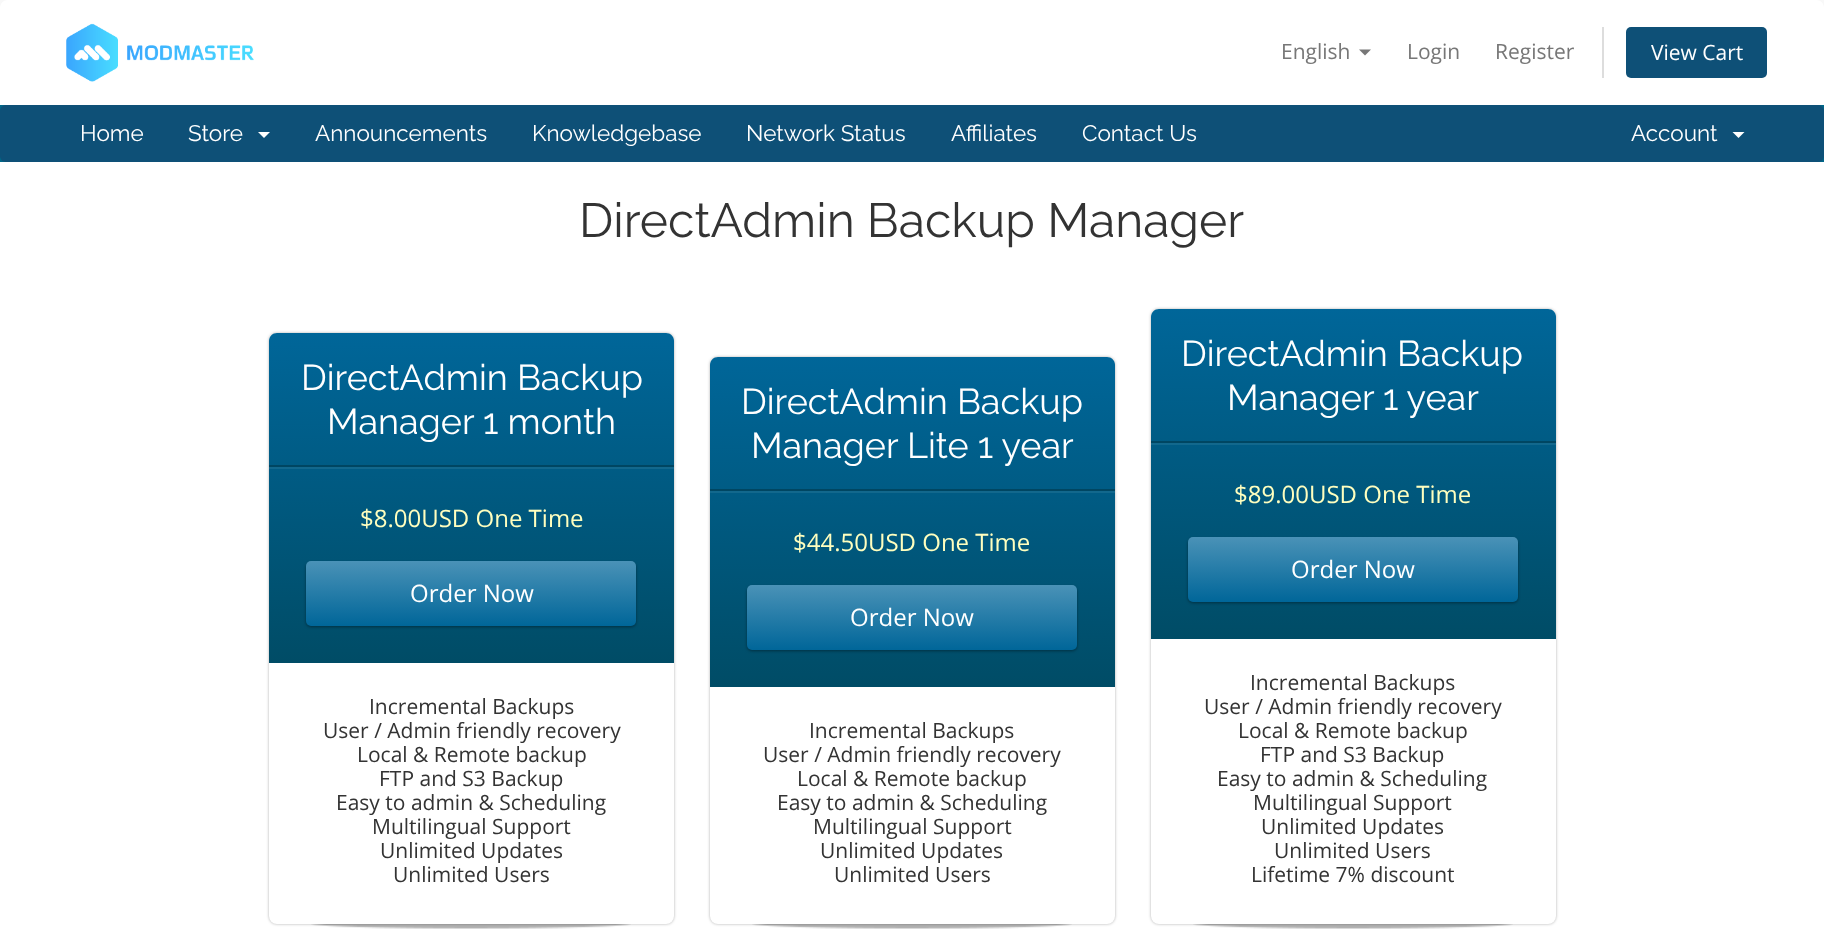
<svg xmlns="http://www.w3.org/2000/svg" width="1824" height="930">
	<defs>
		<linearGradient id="g1" gradientUnits="userSpaceOnUse" x1="471" y1="333" x2="471" y2="663"><stop offset="0" stop-color="#006699" /><stop offset="1" stop-color="#004C66" /></linearGradient>
		<linearGradient id="g2" gradientUnits="userSpaceOnUse" x1="471" y1="561" x2="471" y2="626"><stop offset="0" stop-color="#4A92B7" /><stop offset="1" stop-color="#006699" /></linearGradient>
		<linearGradient id="g3" gradientUnits="userSpaceOnUse" x1="912" y1="357" x2="912" y2="687"><stop offset="0" stop-color="#006699" /><stop offset="1" stop-color="#004C66" /></linearGradient>
		<linearGradient id="g4" gradientUnits="userSpaceOnUse" x1="912" y1="585" x2="912" y2="650"><stop offset="0" stop-color="#4A92B7" /><stop offset="1" stop-color="#006699" /></linearGradient>
		<linearGradient id="g5" gradientUnits="userSpaceOnUse" x1="1353" y1="309" x2="1353" y2="639"><stop offset="0" stop-color="#006699" /><stop offset="1" stop-color="#004C66" /></linearGradient>
		<linearGradient id="g6" gradientUnits="userSpaceOnUse" x1="1353" y1="537" x2="1353" y2="602"><stop offset="0" stop-color="#4A92B7" /><stop offset="1" stop-color="#006699" /></linearGradient>
	</defs>
	<rect width="100%" height="100%" fill="#F8F8F8" />
	<path d="M8 0H1816C1820.5 0 1824 3.5 1824 8V105H0V8C0 3.5 3.5 0 8 0Z" fill="#FFFFFF" />
	<image x="66" y="23" width="188" height="59" href="assets/img1.png" />
	<text x="1281" y="59" font-family="Open Sans" font-size="21" fill="#777777">English</text>
	<path d="M1359 49.5H1371L1365 55.5Z" fill="#777777" />
	<g font-family="Open Sans" font-size="21" fill="#777777">
		<text x="1407" y="59">Login</text>
		<text x="1495" y="59">Register</text>
	</g>
	<rect x="1602" y="27" width="2" height="51" fill="#DDDDDD" />
	<rect x="1626" y="27" width="141" height="51" rx="5" fill="#0E5077" />
	<text x="1651" y="60" font-family="Open Sans" font-size="21" fill="#FFFFFF">View Cart</text>
	<rect x="0" y="105" width="1824" height="57" fill="#006687" />
	<rect x="0" y="105" width="1824" height="57" rx="6" fill="#0E5077" />
	<g font-family="Raleway" font-size="22.5" fill="#FFFFFF">
		<text x="80" y="141">Home</text>
		<text x="188" y="141">Store</text>
	</g>
	<path d="M258 132H270L264 138Z" fill="#FFFFFF" />
	<g font-family="Raleway" font-size="22.5" fill="#FFFFFF">
		<text x="315" y="141">Announcements</text>
		<text x="532" y="141">Knowledgebase</text>
		<text x="746" y="141">Network Status</text>
		<text x="951" y="141">Affiliates</text>
		<text x="1082" y="141">Contact Us</text>
		<text x="1631" y="141">Account</text>
	</g>
	<path d="M1732.5 132H1744.5L1738.5 138Z" fill="#FFFFFF" />
	<rect x="0" y="162" width="1824" height="768" fill="#FFFFFF" />
	<text x="579" y="237" font-family="Raleway" font-size="48" fill="#333333">DirectAdmin Backup Manager</text>
	<image x="311" y="924" width="320" height="5" href="assets/img2.png" />
	<rect x="269" y="333" width="405" height="591" rx="8" fill="#000000" fill-opacity="0.3" filter="blur(1.5px)" />
	<rect x="269" y="333" width="405" height="591" rx="8" fill="#FFFFFF" />
	<path d="M277 333H666C670.5 333 674 336.5 674 341V663H269V341C269 336.5 272.5 333 277 333Z" fill="url(#g1)" />
	<rect x="269" y="465" width="405" height="2" fill="#004662" />
	<g font-family="Raleway" font-size="36" fill="#FFFFFF">
		<text x="301" y="390">DirectAdmin Backup</text>
		<text x="327" y="434">Manager 1 month</text>
	</g>
	<rect x="269" y="467" width="405" height="2" fill="#12688D" />
	<text x="360" y="527" font-family="Open Sans" font-size="24" fill="#FFFFBF">$8.00USD One Time</text>
	<rect x="306" y="563" width="330" height="64" rx="5" fill="#000000" fill-opacity="0.4" filter="blur(1.5px)" />
	<rect x="306" y="561" width="330" height="65" rx="5" fill="url(#g2)" />
	<text x="410" y="602" font-family="Open Sans" font-size="24" fill="#FFFFFF">Order Now</text>
	<g font-family="Open Sans" font-size="21" fill="#333333">
		<text x="369" y="714">Incremental Backups</text>
		<text x="323" y="738">User / Admin friendly recovery</text>
		<text x="357" y="762">Local &amp; Remote backup</text>
		<text x="379" y="786">FTP and S3 Backup</text>
		<text x="336" y="810">Easy to admin &amp; Scheduling</text>
		<text x="372" y="834">Multilingual Support</text>
		<text x="380" y="858">Unlimited Updates</text>
		<text x="393" y="882">Unlimited Users</text>
	</g>
	<image x="752" y="924" width="320" height="5" href="assets/img3.png" />
	<rect x="710" y="357" width="405" height="567" rx="8" fill="#000000" fill-opacity="0.3" filter="blur(1.5px)" />
	<rect x="710" y="357" width="405" height="567" rx="8" fill="#FFFFFF" />
	<path d="M718 357H1107C1111.5 357 1115 360.5 1115 365V687H710V365C710 360.5 713.5 357 718 357Z" fill="url(#g3)" />
	<rect x="710" y="489" width="405" height="2" fill="#004662" />
	<g font-family="Raleway" font-size="36" fill="#FFFFFF">
		<text x="741" y="414">DirectAdmin Backup</text>
		<text x="751" y="458">Manager Lite 1 year</text>
	</g>
	<rect x="710" y="491" width="405" height="2" fill="#12688D" />
	<text x="793" y="551" font-family="Open Sans" font-size="24" fill="#FFFFBF">$44.50USD One Time</text>
	<rect x="747" y="587" width="330" height="64" rx="5" fill="#000000" fill-opacity="0.4" filter="blur(1.5px)" />
	<rect x="747" y="585" width="330" height="65" rx="5" fill="url(#g4)" />
	<text x="850" y="626" font-family="Open Sans" font-size="24" fill="#FFFFFF">Order Now</text>
	<g font-family="Open Sans" font-size="21" fill="#333333">
		<text x="809" y="738">Incremental Backups</text>
		<text x="763" y="762">User / Admin friendly recovery</text>
		<text x="797" y="786">Local &amp; Remote backup</text>
		<text x="777" y="810">Easy to admin &amp; Scheduling</text>
		<text x="813" y="834">Multilingual Support</text>
		<text x="820" y="858">Unlimited Updates</text>
		<text x="834" y="882">Unlimited Users</text>
	</g>
	<image x="1193" y="924" width="320" height="5" href="assets/img4.png" />
	<rect x="1151" y="309" width="405" height="615" rx="8" fill="#000000" fill-opacity="0.3" filter="blur(1.5px)" />
	<rect x="1151" y="309" width="405" height="615" rx="8" fill="#FFFFFF" />
	<path d="M1159 309H1548C1552.5 309 1556 312.5 1556 317V639H1151V317C1151 312.5 1154.5 309 1159 309Z" fill="url(#g5)" />
	<rect x="1151" y="441" width="405" height="2" fill="#004662" />
	<g font-family="Raleway" font-size="36" fill="#FFFFFF">
		<text x="1181" y="366">DirectAdmin Backup</text>
		<text x="1227" y="410">Manager 1 year</text>
	</g>
	<rect x="1151" y="443" width="405" height="2" fill="#12688D" />
	<text x="1234" y="503" font-family="Open Sans" font-size="24" fill="#FFFFBF">$89.00USD One Time</text>
	<rect x="1188" y="539" width="330" height="64" rx="5" fill="#000000" fill-opacity="0.4" filter="blur(1.5px)" />
	<rect x="1188" y="537" width="330" height="65" rx="5" fill="url(#g6)" />
	<text x="1291" y="578" font-family="Open Sans" font-size="24" fill="#FFFFFF">Order Now</text>
	<g font-family="Open Sans" font-size="21" fill="#333333">
		<text x="1250" y="690">Incremental Backups</text>
		<text x="1204" y="714">User / Admin friendly recovery</text>
		<text x="1238" y="738">Local &amp; Remote backup</text>
		<text x="1260" y="762">FTP and S3 Backup</text>
		<text x="1217" y="786">Easy to admin &amp; Scheduling</text>
		<text x="1253" y="810">Multilingual Support</text>
		<text x="1261" y="834">Unlimited Updates</text>
		<text x="1274" y="858">Unlimited Users</text>
		<text x="1251" y="882">Lifetime 7% discount</text>
	</g>
</svg>
